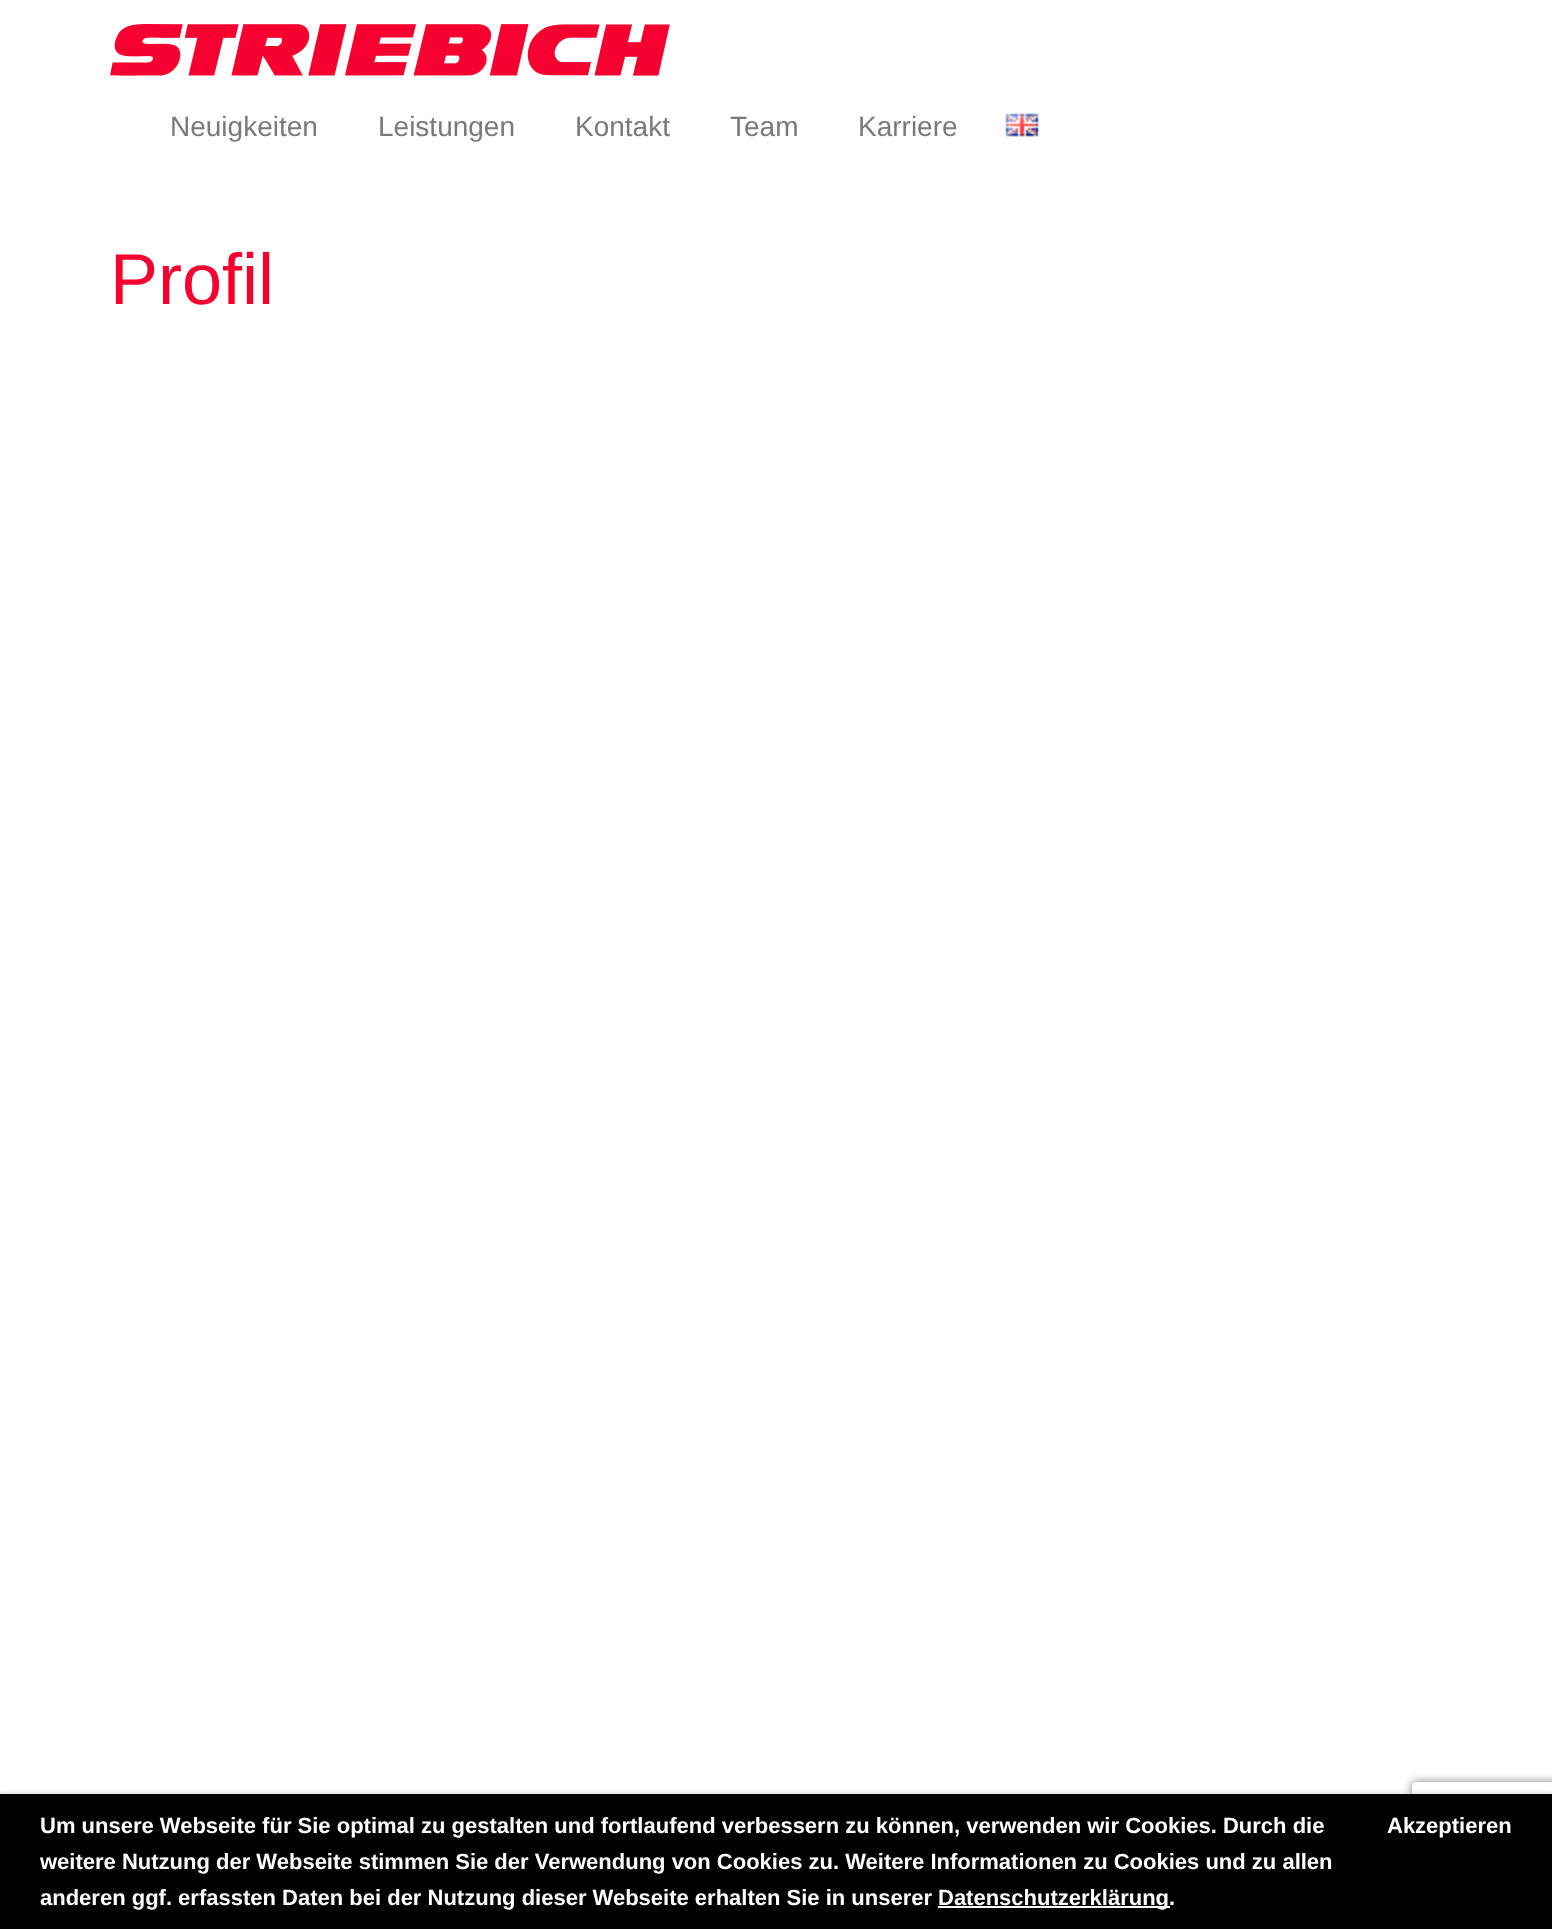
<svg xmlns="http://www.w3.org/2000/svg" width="1552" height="1929">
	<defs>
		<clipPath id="clip1"><path d="M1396 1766H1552V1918H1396ZM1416 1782H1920C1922 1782 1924 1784 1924 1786V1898C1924 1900 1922 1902 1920 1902H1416C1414 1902 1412 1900 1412 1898V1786C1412 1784 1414 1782 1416 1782Z" clip-rule="evenodd" /></clipPath>
	</defs>
	<rect width="100%" height="100%" fill="#FFFFFF" />
	<image x="110" y="24" width="560" height="52" href="assets/img1.png" />
	<g font-family="Liberation Sans" font-size="28" fill="#797979">
		<text x="170" y="136">Neuigkeiten</text>
		<text x="378" y="136">Leistungen</text>
		<text x="575" y="136">Kontakt</text>
		<text x="730" y="136">Team</text>
		<text x="858" y="136">Karriere</text>
	</g>
	<image x="1005" y="113" width="34" height="24" href="assets/img2.png" />
	<text x="110" y="304" font-family="Liberation Sans" font-size="72" fill="#F5002F">Profil</text>
	<g clip-path="url(#clip1)">
		<rect x="1412" y="1782" width="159" height="120" rx="4" fill="#808080" filter="blur(5px)" />
	</g>
	<rect x="0" y="1794" width="1552" height="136" fill="#CCCCCC" filter="blur(3px)" />
	<rect x="0" y="1794" width="1552" height="135" fill="#000000" />
	<g font-family="Liberation Sans" font-size="22" font-weight="700" fill="#FFFFFF">
		<text x="40" y="1833">Um unsere Webseite für Sie optimal zu gestalten und fortlaufend verbessern zu können, verwenden wir Cookies. Durch die</text>
		<text x="40" y="1869">weitere Nutzung der Webseite stimmen Sie der Verwendung von Cookies zu. Weitere Informationen zu Cookies und zu allen</text>
		<text x="40" y="1905">anderen ggf. erfassten Daten bei der Nutzung dieser Webseite erhalten Sie in unserer</text>
	</g>
	<rect x="938" y="1906" width="232" height="2" fill="#FFFFFF" />
	<g font-family="Liberation Sans" font-size="22" font-weight="700" fill="#FFFFFF">
		<text x="938" y="1905">Datenschutzerklärung.</text>
		<text x="1387" y="1833">Akzeptieren</text>
	</g>
</svg>
